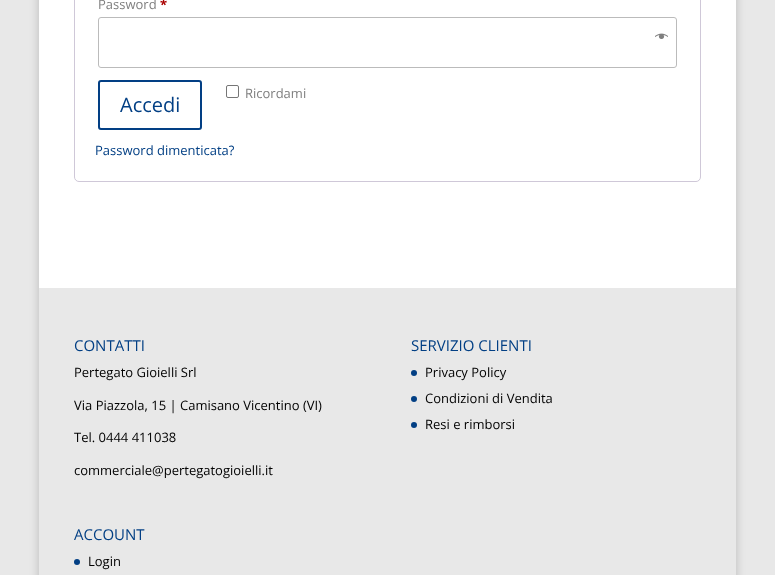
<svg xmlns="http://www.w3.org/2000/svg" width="775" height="575">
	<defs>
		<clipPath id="clip1"><path d="M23 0H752V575H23ZM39-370H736V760H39Z" clip-rule="evenodd" /></clipPath>
	</defs>
	<rect width="100%" height="100%" fill="#E8E8E8" />
	<g clip-path="url(#clip1)">
		<rect x="39" y="-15" width="697" height="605" fill="#000000" fill-opacity="0.2" filter="blur(5px)" />
	</g>
	<rect x="39" y="0" width="697" height="288" fill="#FFFFFF" />
	<rect x="74.5" y="-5.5" width="626" height="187" rx="4.5" fill="none" stroke="#CFC8D8" />
	<text x="98" y="9" font-family="Open Sans" font-size="13" fill="#7F7F7F">Password</text>
	<text x="160" y="9" font-family="Open Sans" font-size="13" font-weight="700" fill="#AA0000">*</text>
	<rect x="98.5" y="17.5" width="578" height="50" rx="2.5" fill="none" stroke="#BBBBBB" />
	<image x="655" y="33" width="13" height="6" href="assets/img1.png" />
	<rect x="226.5" y="85.5" width="12" height="12" rx="1.5" fill="none" stroke="#767676" />
	<text x="245" y="98" font-family="Open Sans" font-size="13" fill="#7F7F7F">Ricordami</text>
	<rect x="99" y="81" width="102" height="48" rx="2" fill="none" stroke="#023F84" stroke-width="2" />
	<text x="120" y="112" font-family="Open Sans" font-size="20" fill="#023F84">Accedi</text>
	<text x="95" y="155" font-family="Open Sans" font-size="13" fill="#023F84">Password dimenticata?</text>
	<text x="74" y="351" font-family="Open Sans" font-size="15" fill="#023F84">CONTATTI</text>
	<g font-family="Open Sans" font-size="13" fill="#000000">
		<text x="74" y="377">Pertegato Gioielli Srl</text>
		<text x="74" y="410">Via Piazzola, 15 | Camisano Vicentino (VI)</text>
		<text x="74" y="442">Tel. 0444 411038</text>
		<text x="74" y="475">commerciale@pertegatogioielli.it</text>
	</g>
	<text x="411" y="351" font-family="Open Sans" font-size="15" fill="#023F84">SERVIZIO CLIENTI</text>
	<circle cx="414" cy="373" r="3" fill="#023F84" />
	<text x="425" y="377" font-family="Open Sans" font-size="13" fill="#000000">Privacy Policy</text>
	<circle cx="414" cy="399" r="3" fill="#023F84" />
	<text x="425" y="403" font-family="Open Sans" font-size="13" fill="#000000">Condizioni di Vendita</text>
	<circle cx="414" cy="425" r="3" fill="#023F84" />
	<text x="425" y="429" font-family="Open Sans" font-size="13" fill="#000000">Resi e rimborsi</text>
	<text x="74" y="540" font-family="Open Sans" font-size="15" fill="#023F84">ACCOUNT</text>
	<circle cx="77" cy="562" r="3" fill="#023F84" />
	<text x="88" y="566" font-family="Open Sans" font-size="13" fill="#000000">Login</text>
</svg>
